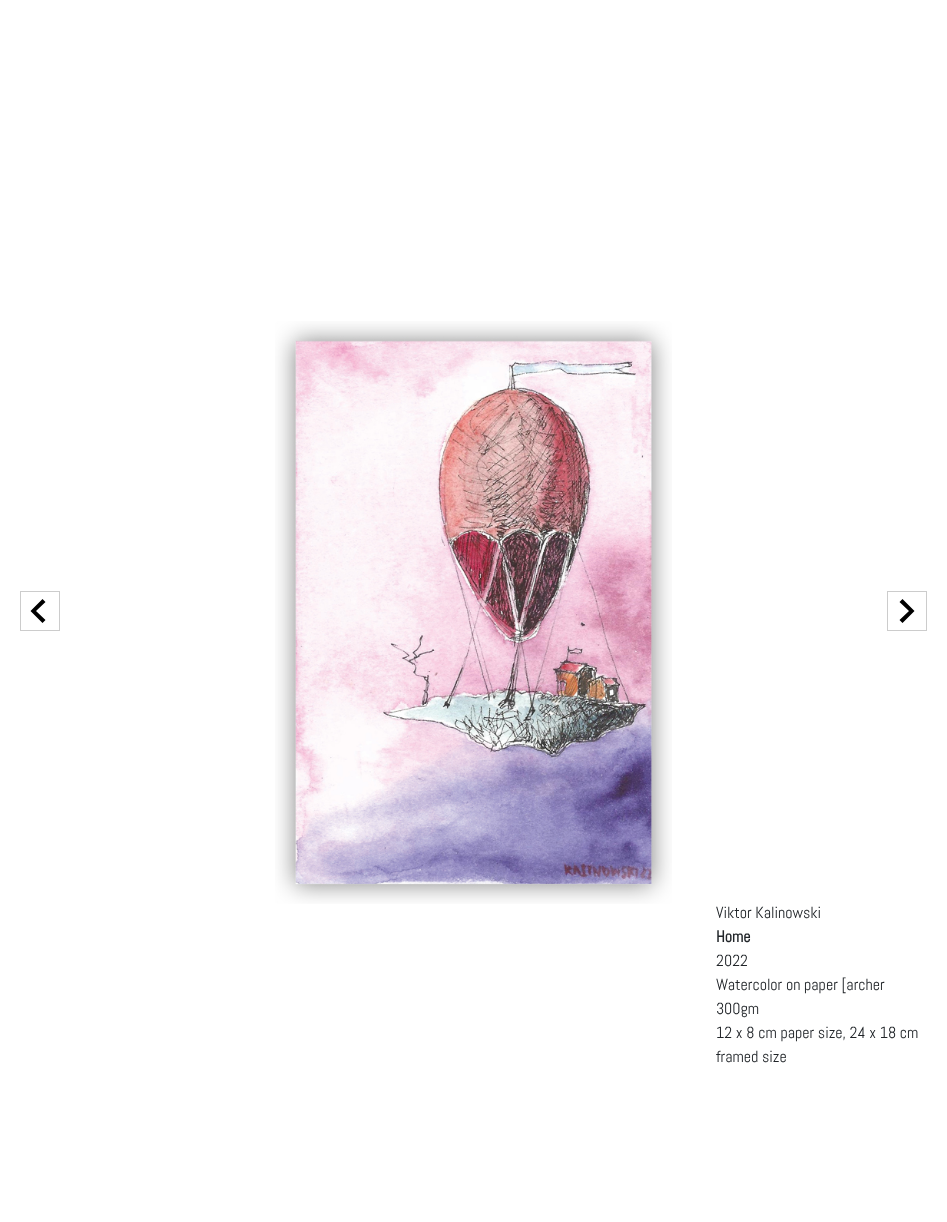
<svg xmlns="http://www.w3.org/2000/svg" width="947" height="1222">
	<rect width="100%" height="100%" fill="#FFFFFF" />
	<rect x="20.5" y="591.5" width="39" height="39" fill="none" stroke="#CCCCCC" />
	<path d="M42.5 599L45.5 602L36 611L45.5 620L42.5 623L30.5 611Z" fill="#000000" />
	<image x="275" y="321" width="397" height="583" href="assets/img1.png" />
	<rect x="887.5" y="591.5" width="39" height="39" fill="none" stroke="#CCCCCC" />
	<path d="M902.5 623L899.5 620L909 611L899.5 602L902.5 599L914.5 611Z" fill="#000000" />
	<text x="716" y="918" font-family="Abel" font-size="16" fill="#212529">Viktor Kalinowski</text>
	<text x="716" y="942" font-family="Abel" font-size="16" font-weight="700" fill="#212529">Home</text>
	<g font-family="Abel" font-size="16" fill="#212529">
		<text x="716" y="966">2022</text>
		<text x="716" y="990">Watercolor on paper [archer</text>
		<text x="716" y="1014">300gm</text>
		<text x="716" y="1038">12 x 8 cm paper size, 24 x 18 cm</text>
		<text x="716" y="1062">framed size</text>
	</g>
</svg>
